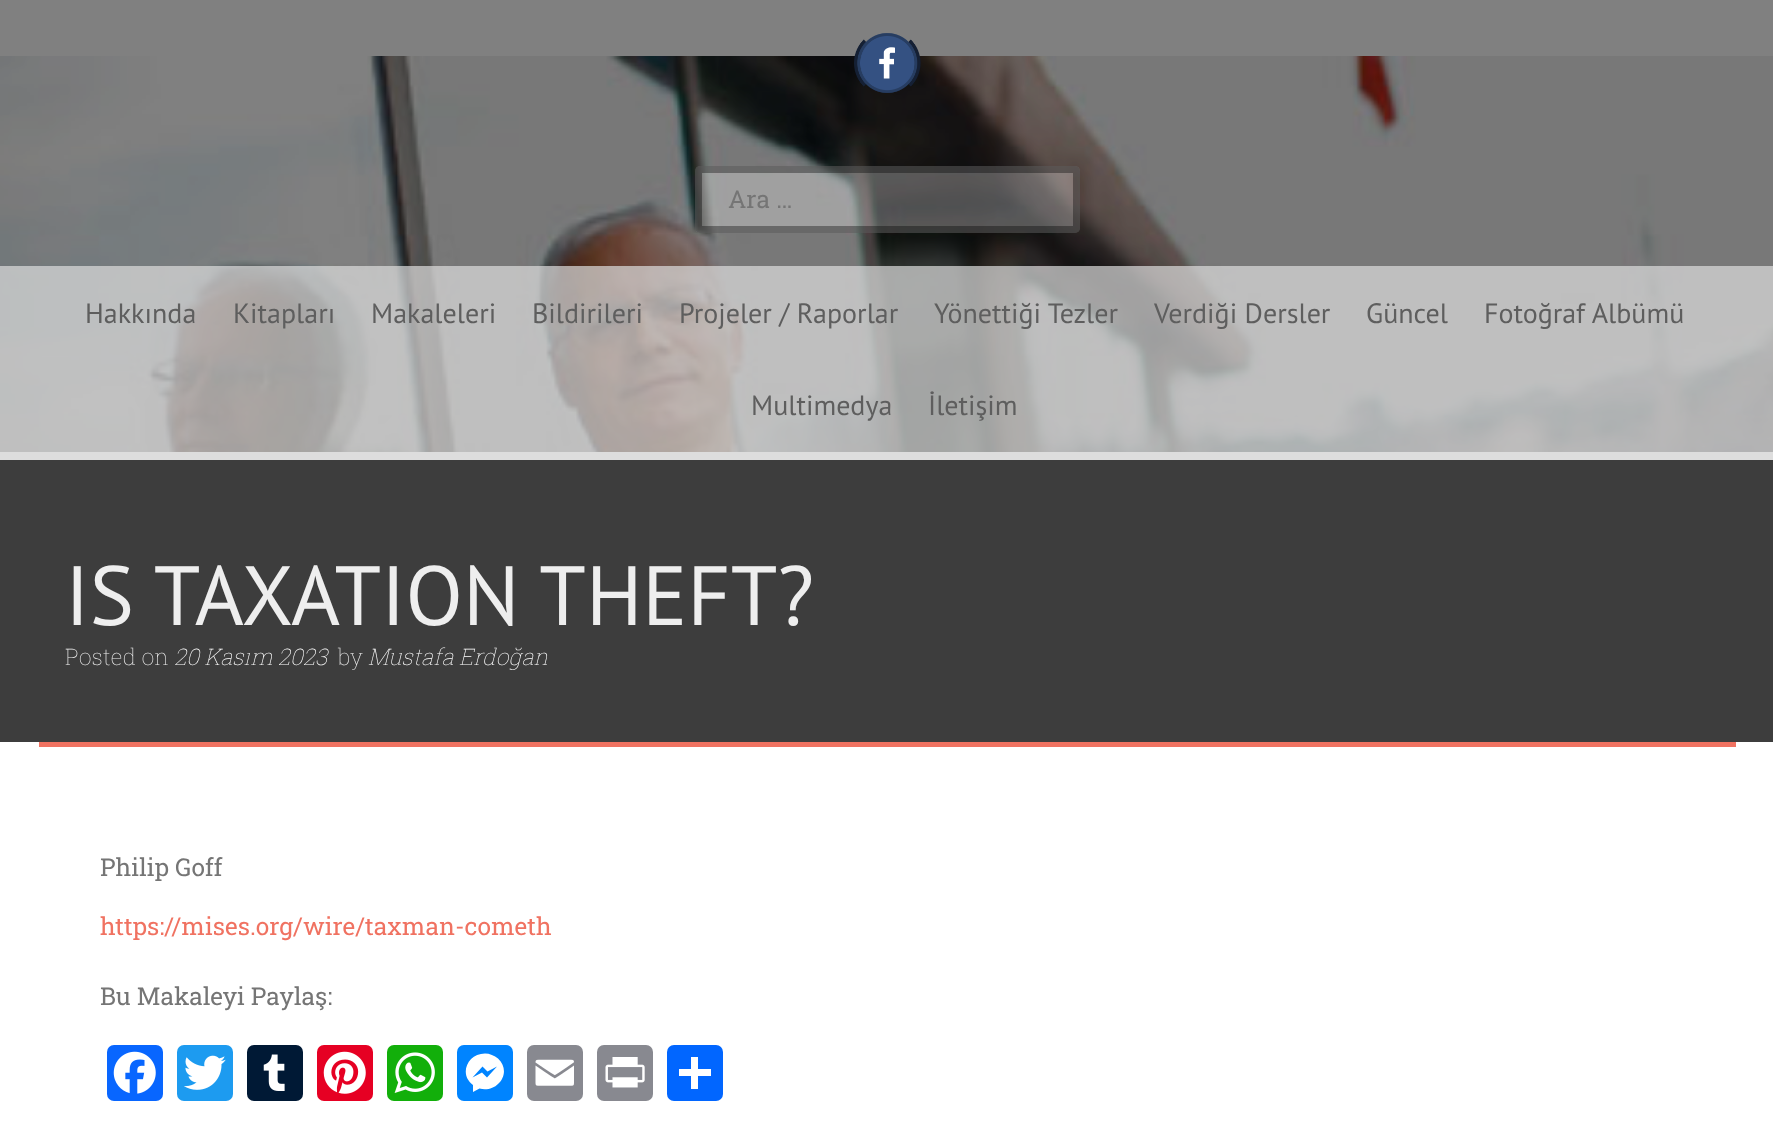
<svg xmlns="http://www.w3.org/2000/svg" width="1773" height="1145">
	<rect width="100%" height="100%" fill="#808080" />
	<image x="0" y="56" width="1773" height="396" href="assets/img1.png" />
	<image x="854" y="33" width="67" height="60" href="assets/img2.png" />
	<rect x="695" y="166" width="385" height="67" rx="5" fill="#FFFFFF" fill-opacity="0.3" />
	<rect x="698.5" y="169.5" width="378" height="60" rx="1.5" fill="none" stroke="#000000" stroke-opacity="0.35" stroke-width="7" />
	<text x="728" y="208" font-family="Roboto Slab" font-size="24.5" fill="#757575">Ara …</text>
	<rect x="0" y="266" width="1773" height="186" fill="#DDDDDD" fill-opacity="0.7" />
	<rect x="0" y="452" width="1773" height="8" fill="#DDDDDD" />
	<g font-family="PT Sans" font-size="28" fill="#5E5E5E">
		<text x="85" y="323">Hakkında</text>
		<text x="233" y="323">Kitapları</text>
		<text x="371" y="323">Makaleleri</text>
		<text x="532" y="323">Bildirileri</text>
		<text x="679" y="323">Projeler / Raporlar</text>
		<text x="934" y="323">Yönettiği Tezler</text>
		<text x="1154" y="323">Verdiği Dersler</text>
		<text x="1366" y="323">Güncel</text>
		<text x="1484" y="323">Fotoğraf Albümü</text>
		<text x="751" y="415">Multimedya</text>
		<text x="928" y="415">İletişim</text>
	</g>
	<rect x="0" y="460" width="1773" height="282" fill="#3D3D3D" />
	<text x="65" y="625" font-family="PT Sans" font-size="84" fill="#EEEEEE">IS TAXATION THEFT?</text>
	<text x="65" y="665" font-family="Roboto Slab" font-size="22.75" font-weight="100" fill="#EEEEEE">Posted on</text>
	<text x="174" y="665" font-family="Roboto Slab" font-size="22.75" font-weight="100" font-style="italic" fill="#FFFFFF">20 Kasım 2023</text>
	<text x="338" y="665" font-family="Roboto Slab" font-size="22.75" font-weight="100" fill="#EEEEEE">by</text>
	<text x="368" y="665" font-family="Roboto Slab" font-size="22.75" font-weight="100" font-style="italic" fill="#FFFFFF">Mustafa Erdoğan</text>
	<rect x="0" y="742" width="1773" height="403" fill="#FFFFFF" />
	<rect x="39" y="742" width="1697" height="5" fill="#F07261" />
	<text x="100" y="876" font-family="Roboto Slab" font-size="24.5" fill="#757575">Philip Goff</text>
	<text x="100" y="935" font-family="Roboto Slab" font-size="24.5" fill="#F07261">https://mises.org/wire/taxman-cometh</text>
	<text x="100" y="1005" font-family="Roboto Slab" font-size="24.5" fill="#757575">Bu Makaleyi Paylaş:</text>
	<rect x="107" y="1045" width="56" height="56" rx="7" fill="#0866FF" />
	<image x="113" y="1051" width="43" height="43" href="assets/img3.png" />
	<rect x="177" y="1045" width="56" height="56" rx="7" fill="#1D9BF0" />
	<image x="184" y="1055" width="42" height="35" href="assets/img4.png" />
	<rect x="247" y="1045" width="56" height="56" rx="7" fill="#001935" />
	<image x="263" y="1054" width="22" height="37" href="assets/img5.png" />
	<rect x="317" y="1045" width="56" height="56" rx="7" fill="#E60023" />
	<image x="323" y="1051" width="43" height="43" href="assets/img6.png" />
	<rect x="387" y="1045" width="56" height="56" rx="7" fill="#12AF0A" />
	<image x="394" y="1052" width="41" height="41" href="assets/img7.png" />
	<rect x="457" y="1045" width="56" height="56" rx="7" fill="#0084FF" />
	<path d="M485 1053.5C467.5 1053.5 458.5 1074.5 473 1085V1092L479.5 1088.5C497 1093.5 513 1072.5 498 1058.5C494.5 1055.5 489.5 1053.5 485 1053.5M487 1077.5L482 1072.5L472.5 1077.5L482.5 1066.5L487.5 1071.5L497 1066.5Z" fill="#FFFFFF" />
	<rect x="527" y="1045" width="56" height="56" rx="7" fill="#888990" />
	<image x="535" y="1059" width="39" height="27" href="assets/img8.png" />
	<rect x="597" y="1045" width="56" height="56" rx="7" fill="#888990" />
	<image x="605" y="1057" width="40" height="31" href="assets/img9.png" />
	<rect x="667" y="1045" width="56" height="56" rx="7" fill="#0166FF" />
	<rect x="691" y="1057" width="7" height="32" fill="#FFFFFF" />
	<rect x="679" y="1069" width="32" height="7" fill="#FFFFFF" />
</svg>
